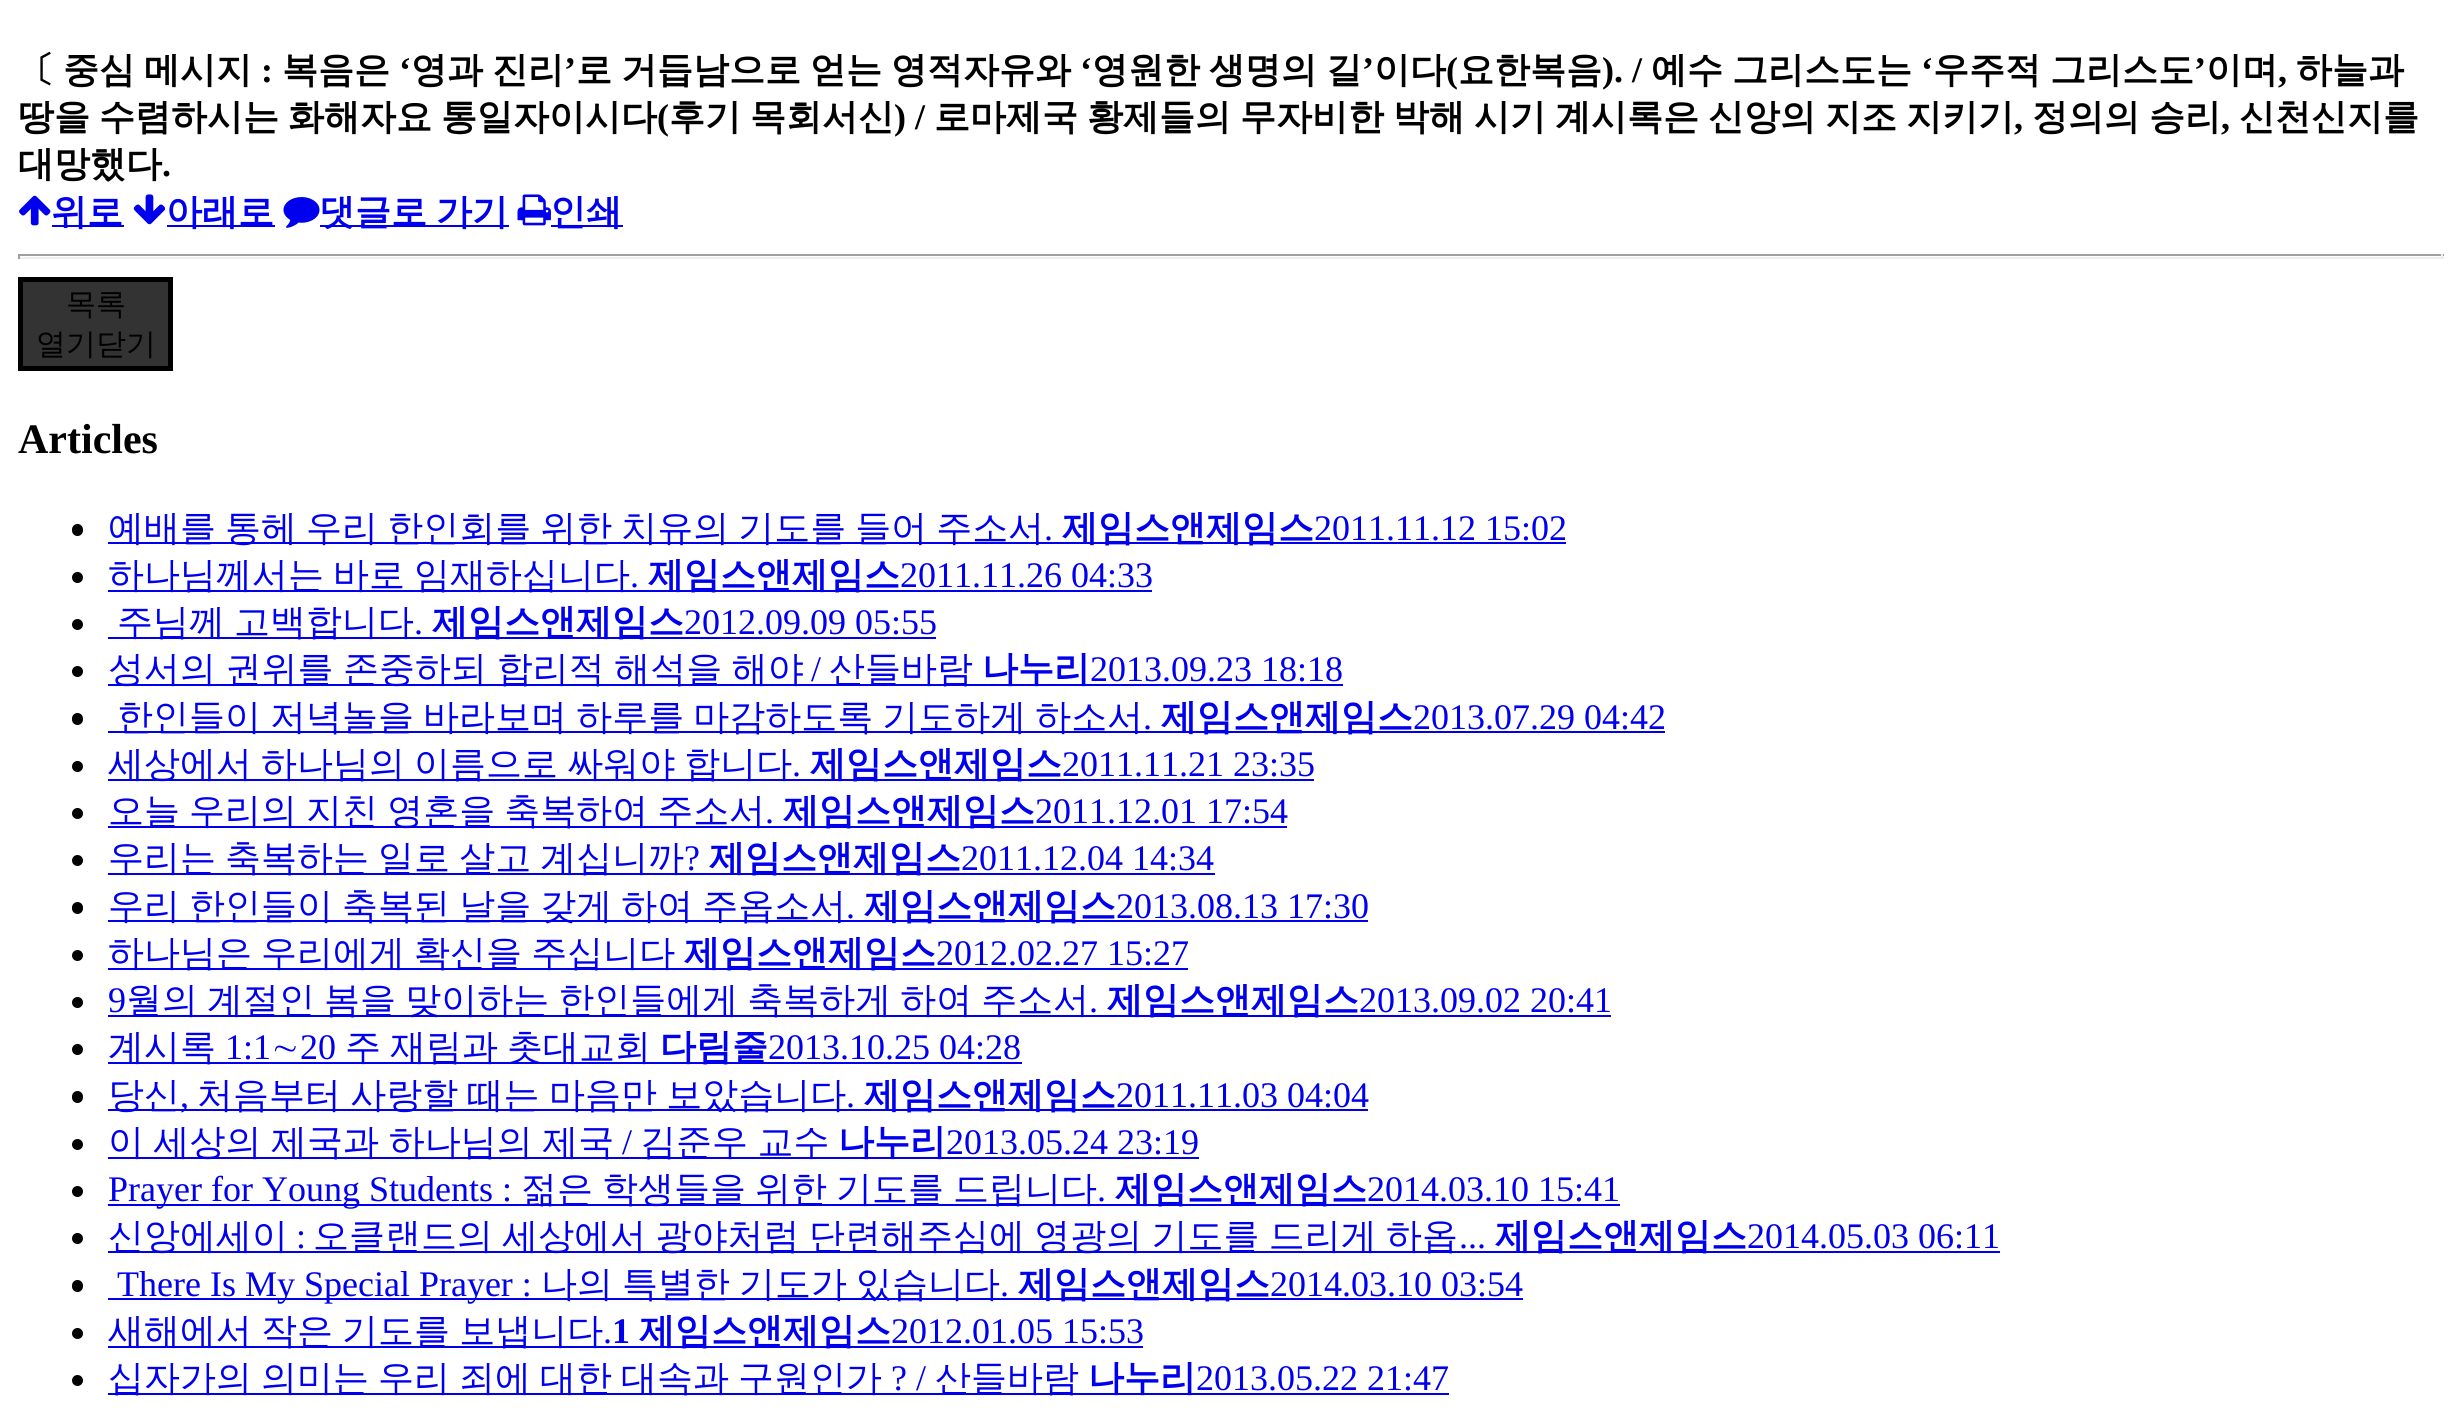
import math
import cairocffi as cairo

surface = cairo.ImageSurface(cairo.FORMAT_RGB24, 2460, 1416)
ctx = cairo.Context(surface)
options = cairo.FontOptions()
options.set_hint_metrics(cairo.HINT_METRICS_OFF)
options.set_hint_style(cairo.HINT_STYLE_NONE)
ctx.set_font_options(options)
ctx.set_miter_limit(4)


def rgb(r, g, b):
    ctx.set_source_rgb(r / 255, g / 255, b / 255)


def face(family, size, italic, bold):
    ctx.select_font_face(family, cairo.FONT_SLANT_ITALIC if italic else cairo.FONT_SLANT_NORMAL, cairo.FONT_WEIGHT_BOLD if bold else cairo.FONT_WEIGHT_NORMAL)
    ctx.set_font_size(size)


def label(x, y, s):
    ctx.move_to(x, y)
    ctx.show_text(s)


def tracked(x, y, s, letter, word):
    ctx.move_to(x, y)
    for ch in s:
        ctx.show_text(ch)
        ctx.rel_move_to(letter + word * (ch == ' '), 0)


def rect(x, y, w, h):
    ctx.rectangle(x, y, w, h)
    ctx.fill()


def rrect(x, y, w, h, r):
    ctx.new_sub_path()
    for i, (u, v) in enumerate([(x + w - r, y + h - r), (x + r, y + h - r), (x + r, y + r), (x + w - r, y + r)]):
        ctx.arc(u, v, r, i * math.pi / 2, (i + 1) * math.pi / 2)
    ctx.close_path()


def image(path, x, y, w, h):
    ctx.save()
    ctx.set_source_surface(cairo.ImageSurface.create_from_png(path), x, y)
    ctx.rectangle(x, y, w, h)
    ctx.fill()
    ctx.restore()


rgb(255, 255, 255)
ctx.paint()
face('WenQuanYi Zen Hei', 36, 0, 1)
rgb(0, 0, 0)
label(18, 82, '〔')
label(63, 82, '중심')
label(144, 82, '메시지')
label(282, 82, '복음은')
face('Liberation Serif', 36, 0, 1)
label(399, 82, '‘')
face('WenQuanYi Zen Hei', 36, 0, 1)
label(411, 82, '영과')
label(492, 82, '진리')
face('Liberation Serif', 36, 0, 1)
label(564, 82, '’')
face('WenQuanYi Zen Hei', 36, 0, 1)
label(576, 82, '로')
label(621, 82, '거듭남으로')
label(810, 82, '얻는')
label(891, 82, '영적자유와')
face('Liberation Serif', 36, 0, 1)
label(1080, 82, '‘')
face('WenQuanYi Zen Hei', 36, 0, 1)
label(1092, 82, '영원한')
label(1209, 82, '생명의')
label(1326, 82, '길')
face('Liberation Serif', 36, 0, 1)
label(1362, 82, '’')
face('WenQuanYi Zen Hei', 36, 0, 1)
label(1374, 82, '이다')
face('Liberation Serif', 36, 0, 1)
label(1446, 82, '(')
face('WenQuanYi Zen Hei', 36, 0, 1)
label(1458, 82, '요한복음')
face('Liberation Serif', 36, 0, 1)
label(1602, 82, '). /')
face('WenQuanYi Zen Hei', 36, 0, 1)
label(1651, 82, '예수')
label(1732, 82, '그리스도는')
face('Liberation Serif', 36, 0, 1)
label(1921, 82, '‘')
face('WenQuanYi Zen Hei', 36, 0, 1)
label(1933, 82, '우주적')
label(2050, 82, '그리스도')
face('Liberation Serif', 36, 0, 1)
label(2194, 82, '’')
face('WenQuanYi Zen Hei', 36, 0, 1)
label(2206, 82, '이며')
label(2296, 82, '하늘과')
face('Liberation Serif', 36, 0, 1)
label(261, 82, ':')
label(2278, 82, ',')
face('WenQuanYi Zen Hei', 36, 0, 1)
label(18, 129, '땅을')
label(99, 129, '수렴하시는')
label(288, 129, '화해자요')
label(441, 129, '통일자이시다')
face('Liberation Serif', 36, 0, 1)
label(657, 129, '(')
face('WenQuanYi Zen Hei', 36, 0, 1)
label(669, 129, '후기')
label(750, 129, '목회서신')
face('Liberation Serif', 36, 0, 1)
label(894, 129, ') /')
face('WenQuanYi Zen Hei', 36, 0, 1)
label(934, 129, '로마제국')
label(1087, 129, '황제들의')
label(1240, 129, '무자비한')
label(1393, 129, '박해')
label(1474, 129, '시기')
label(1555, 129, '계시록은')
label(1708, 129, '신앙의')
label(1825, 129, '지조')
label(1906, 129, '지키기')
face('Liberation Serif', 36, 0, 1)
label(2014, 129, ',')
face('WenQuanYi Zen Hei', 36, 0, 1)
label(2032, 129, '정의의')
label(2149, 129, '승리')
face('Liberation Serif', 36, 0, 1)
label(2221, 129, ',')
face('WenQuanYi Zen Hei', 36, 0, 1)
label(2239, 129, '신천신지를')
label(18, 176, '대망했다')
face('Liberation Serif', 36, 0, 1)
label(162, 176, '.')
image('image0.png', 19, 195, 32, 31)
rgb(0, 0, 238)
rect(52, 225, 72, 2)
face('WenQuanYi Zen Hei', 36, 0, 1)
label(51, 224, '위로')
image('image1.png', 133, 194, 33, 31)
rect(167, 225, 108, 2)
label(166, 224, '아래로')
image('image2.png', 283, 197, 37, 31)
rect(320, 225, 189, 2)
tracked(319, 224, '댓글로 가기', 0, -1.75)
image('image3.png', 517, 194, 34, 32)
rect(551, 225, 72, 2)
label(550, 224, '인쇄')
rgb(159, 159, 159)
rect(18, 254, 2426, 2)
rgb(238, 238, 238)
rect(2441, 254, 2, 5)
rect(18, 257, 2426, 2)
rgb(159, 159, 159)
rect(18, 254, 2, 5)
rgb(51, 51, 51)
ctx.rectangle(20.5, 279.5, 150, 89)
ctx.fill_preserve()
rgb(0, 0, 0)
ctx.set_line_width(5)
ctx.stroke()
face('WenQuanYi Zen Hei Medium', 30, 0, 0)
label(66, 314, '목록')
label(36, 354, '열기닫기')
face('Liberation Serif', 42, 0, 1)
label(18, 453, 'Articles')
rrect(72, 524, 11, 12, 5.5)
ctx.fill()
rgb(0, 0, 238)
rect(108, 542, 1458, 2)
face('WenQuanYi Zen Hei Medium', 36, 0, 0)
tracked(108, 540, '예배를 통헤 우리 한인회를 위한 치유의 기도를 들어 주소서', 0, -1.75)
face('WenQuanYi Zen Hei', 36, 0, 1)
label(1062, 540, '제임스앤제임스')
face('Liberation Serif', 36, 0, 0)
label(1314, 540, '2011.11.12 15:02')
label(1044, 540, '.')
rgb(0, 0, 0)
ctx.new_path()
ctx.arc(77.5, 577.5, 5.5, 0, 2 * math.pi)
ctx.fill()
rgb(0, 0, 238)
rect(108, 590, 1044, 2)
face('WenQuanYi Zen Hei Medium', 36, 0, 0)
tracked(108, 587, '하나님께서는 바로 임재하십니다', 0, -1.75)
face('WenQuanYi Zen Hei', 36, 0, 1)
label(648, 587, '제임스앤제임스')
face('Liberation Serif', 36, 0, 0)
label(900, 587, '2011.11.26 04:33')
label(630, 587, '.')
rgb(0, 0, 0)
ctx.new_path()
ctx.arc(77.5, 624.5, 5.5, 0, 2 * math.pi)
ctx.fill()
rgb(0, 0, 238)
rect(108, 637, 828, 2)
face('WenQuanYi Zen Hei Medium', 36, 0, 0)
tracked(117, 634, '주님께 고백합니다', 0, -1.75)
face('WenQuanYi Zen Hei', 36, 0, 1)
label(432, 634, '제임스앤제임스')
face('Liberation Serif', 36, 0, 0)
label(684, 634, '2012.09.09 05:55')
label(414, 634, '.')
rgb(0, 0, 0)
ctx.new_path()
ctx.arc(77.5, 671.5, 5.5, 0, 2 * math.pi)
ctx.fill()
rgb(0, 0, 238)
rect(108, 684, 864, 2)
face('WenQuanYi Zen Hei Medium', 36, 0, 0)
tracked(108, 681, '성서의 권위를 존중하되 합리적 해석을 해야', 0, -1.25)
face('Liberation Serif', 36, 0, 0)
label(811, 681, '/')
face('WenQuanYi Zen Hei Medium', 36, 0, 0)
label(829, 681, '산들바람')
rect(972, 684, 371, 2)
face('WenQuanYi Zen Hei', 36, 0, 1)
label(982, 681, '나누리')
face('Liberation Serif', 36, 0, 0)
label(1090, 681, '2013.09.23 18:18')
rgb(0, 0, 0)
rrect(72, 713, 11, 12, 5.5)
ctx.fill()
rgb(0, 0, 238)
rect(108, 731, 1557, 2)
face('WenQuanYi Zen Hei Medium', 36, 0, 0)
tracked(117, 729, '한인들이 저녁놀을 바라보며 하루를 마감하도록 기도하게 하소서', 0, -1.75)
face('WenQuanYi Zen Hei', 36, 0, 1)
label(1161, 729, '제임스앤제임스')
face('Liberation Serif', 36, 0, 0)
label(1413, 729, '2013.07.29 04:42')
label(1143, 729, '.')
rgb(0, 0, 0)
ctx.new_path()
ctx.arc(77.5, 766.5, 5.5, 0, 2 * math.pi)
ctx.fill()
rgb(0, 0, 238)
rect(108, 779, 1206, 2)
face('WenQuanYi Zen Hei Medium', 36, 0, 0)
tracked(108, 776, '세상에서 하나님의 이름으로 싸워야 합니다', 0, -1.75)
face('WenQuanYi Zen Hei', 36, 0, 1)
label(810, 776, '제임스앤제임스')
face('Liberation Serif', 36, 0, 0)
label(1062, 776, '2011.11.21 23:35')
label(792, 776, '.')
rgb(0, 0, 0)
ctx.new_path()
ctx.arc(77.5, 813.5, 5.5, 0, 2 * math.pi)
ctx.fill()
rgb(0, 0, 238)
rect(108, 826, 1179, 2)
face('WenQuanYi Zen Hei Medium', 36, 0, 0)
tracked(108, 823, '오늘 우리의 지친 영혼을 축복하여 주소서', 0, -1.75)
face('WenQuanYi Zen Hei', 36, 0, 1)
label(783, 823, '제임스앤제임스')
face('Liberation Serif', 36, 0, 0)
label(1035, 823, '2011.12.01 17:54')
label(765, 823, '.')
rgb(0, 0, 0)
ctx.new_path()
ctx.arc(77.5, 860.5, 5.5, 0, 2 * math.pi)
ctx.fill()
rgb(0, 0, 238)
rect(108, 873, 1107, 2)
face('WenQuanYi Zen Hei Medium', 36, 0, 0)
tracked(108, 870, '우리는 축복하는 일로 살고 계십니까', 0, -1.75)
face('Liberation Serif', 36, 0, 0)
label(684, 870, '?')
face('WenQuanYi Zen Hei', 36, 0, 1)
label(709, 870, '제임스앤제임스')
face('Liberation Serif', 36, 0, 0)
label(961, 870, '2011.12.04 14:34')
rgb(0, 0, 0)
rrect(72, 902, 11, 12, 5.5)
ctx.fill()
rgb(0, 0, 238)
rect(108, 920, 1260, 2)
face('WenQuanYi Zen Hei Medium', 36, 0, 0)
tracked(108, 918, '우리 한인들이 축복된 날을 갖게 하여 주옵소서', 0, -1.75)
face('WenQuanYi Zen Hei', 36, 0, 1)
label(864, 918, '제임스앤제임스')
face('Liberation Serif', 36, 0, 0)
label(1116, 918, '2013.08.13 17:30')
label(846, 918, '.')
rgb(0, 0, 0)
ctx.new_path()
ctx.arc(77.5, 955.5, 5.5, 0, 2 * math.pi)
ctx.fill()
rgb(0, 0, 238)
rect(108, 968, 1080, 2)
face('WenQuanYi Zen Hei Medium', 36, 0, 0)
tracked(108, 965, '하나님은 우리에게 확신을 주십니다', 0, -1.75)
face('WenQuanYi Zen Hei', 36, 0, 1)
label(684, 965, '제임스앤제임스')
face('Liberation Serif', 36, 0, 0)
label(936, 965, '2012.02.27 15:27')
rgb(0, 0, 0)
ctx.new_path()
ctx.arc(77.5, 1002.5, 5.5, 0, 2 * math.pi)
ctx.fill()
rgb(0, 0, 238)
label(108, 1012, '9')
rect(108, 1015, 1503, 2)
face('WenQuanYi Zen Hei Medium', 36, 0, 0)
tracked(126, 1012, '월의 계절인 봄을 맞이하는 한인들에게 축복하게 하여 주소서', 0, -1.75)
face('WenQuanYi Zen Hei', 36, 0, 1)
label(1107, 1012, '제임스앤제임스')
face('Liberation Serif', 36, 0, 0)
label(1359, 1012, '2013.09.02 20:41')
label(1089, 1012, '.')
rgb(0, 0, 0)
ctx.new_path()
ctx.arc(77.5, 1049.5, 5.5, 0, 2 * math.pi)
ctx.fill()
rgb(0, 0, 238)
rect(108, 1062, 914, 2)
face('WenQuanYi Zen Hei Medium', 36, 0, 0)
label(108, 1059, '계시록')
face('Liberation Serif', 36, 0, 0)
label(225, 1059, '1:1')
face('WenQuanYi Zen Hei Medium', 36, 0, 0)
label(271, 1059, '∼')
face('Liberation Serif', 36, 0, 0)
label(300, 1059, '20')
face('WenQuanYi Zen Hei Medium', 36, 0, 0)
tracked(345, 1059, '주 재림과 촛대교회', 0, -1.75)
face('WenQuanYi Zen Hei', 36, 0, 1)
label(660, 1059, '다림줄')
face('Liberation Serif', 36, 0, 0)
label(768, 1059, '2013.10.25 04:28')
rgb(0, 0, 0)
rrect(72, 1091, 11, 12, 5.5)
ctx.fill()
rgb(0, 0, 238)
rect(108, 1109, 1260, 2)
face('WenQuanYi Zen Hei Medium', 36, 0, 0)
label(108, 1107, '당신')
tracked(197, 1107, '처음부터 사랑할 때는 마음만 보았습니다', 0, -1.5)
face('WenQuanYi Zen Hei', 36, 0, 1)
label(864, 1107, '제임스앤제임스')
face('Liberation Serif', 36, 0, 0)
label(1116, 1107, '2011.11.03 04:04')
label(180, 1107, ',')
label(846, 1107, '.')
rgb(0, 0, 0)
ctx.new_path()
ctx.arc(77.5, 1144.5, 5.5, 0, 2 * math.pi)
ctx.fill()
rgb(0, 0, 238)
rect(108, 1157, 1091, 2)
face('WenQuanYi Zen Hei Medium', 36, 0, 0)
tracked(108, 1154, '이 세상의 제국과 하나님의 제국', 0, -1.25)
face('Liberation Serif', 36, 0, 0)
label(622, 1154, '/')
face('WenQuanYi Zen Hei Medium', 36, 0, 0)
tracked(640, 1154, '김준우 교수', 0, -1.25)
face('WenQuanYi Zen Hei', 36, 0, 1)
label(838, 1154, '나누리')
face('Liberation Serif', 36, 0, 0)
label(946, 1154, '2013.05.24 23:19')
rgb(0, 0, 0)
ctx.new_path()
ctx.arc(77.5, 1191.5, 5.5, 0, 2 * math.pi)
ctx.fill()
rgb(0, 0, 238)
rect(108, 1204, 1512, 2)
label(108, 1201, 'Prayer for Young Students :')
face('WenQuanYi Zen Hei Medium', 36, 0, 0)
label(521, 1201, '젊은')
label(602, 1201, '학생들을')
label(755, 1201, '위한')
label(836, 1201, '기도를')
label(953, 1201, '드립니다')
face('WenQuanYi Zen Hei', 36, 0, 1)
label(1115, 1201, '제임스앤제임스')
face('Liberation Serif', 36, 0, 0)
label(1367, 1201, '2014.03.10 15:41')
label(1097, 1201, '.')
rgb(0, 0, 0)
ctx.new_path()
ctx.arc(77.5, 1238.5, 5.5, 0, 2 * math.pi)
ctx.fill()
rgb(0, 0, 238)
rect(108, 1251, 1892, 2)
face('WenQuanYi Zen Hei Medium', 36, 0, 0)
label(108, 1248, '신앙에세이')
face('Liberation Serif', 36, 0, 0)
label(296, 1248, ':')
face('WenQuanYi Zen Hei Medium', 36, 0, 0)
tracked(313, 1248, '오클랜드의 세상에서 광야처럼 단련해주심에 영광의 기도를 드리게 하옵', 0, -1.5)
face('WenQuanYi Zen Hei', 36, 0, 1)
label(1495, 1248, '제임스앤제임스')
face('Liberation Serif', 36, 0, 0)
label(1747, 1248, '2014.05.03 06:11')
label(1459, 1248, '...')
rgb(0, 0, 0)
rrect(72, 1280, 11, 12, 5.5)
ctx.fill()
rgb(0, 0, 238)
rect(108, 1298, 1415, 2)
label(117, 1296, 'There Is My Special Prayer :')
face('WenQuanYi Zen Hei Medium', 36, 0, 0)
label(541, 1296, '나의')
label(622, 1296, '특별한')
label(739, 1296, '기도가')
label(856, 1296, '있습니다')
face('WenQuanYi Zen Hei', 36, 0, 1)
label(1018, 1296, '제임스앤제임스')
face('Liberation Serif', 36, 0, 0)
label(1270, 1296, '2014.03.10 03:54')
label(1000, 1296, '.')
rgb(0, 0, 0)
ctx.new_path()
ctx.arc(77.5, 1333.5, 5.5, 0, 2 * math.pi)
ctx.fill()
rgb(0, 0, 238)
rect(108, 1346, 1035, 2)
face('WenQuanYi Zen Hei Medium', 36, 0, 0)
tracked(108, 1343, '새해에서 작은 기도를 보냅니다', 0, -1.75)
face('Liberation Serif', 36, 0, 1)
label(612, 1343, '1')
face('WenQuanYi Zen Hei', 36, 0, 1)
label(639, 1343, '제임스앤제임스')
face('Liberation Serif', 36, 0, 0)
label(891, 1343, '2012.01.05 15:53')
label(603, 1343, '.')
rgb(0, 0, 0)
ctx.new_path()
ctx.arc(77.5, 1380.5, 5.5, 0, 2 * math.pi)
ctx.fill()
rgb(0, 0, 238)
rect(108, 1393, 1341, 2)
face('WenQuanYi Zen Hei Medium', 36, 0, 0)
label(108, 1390, '십자가의')
label(261, 1390, '의미는')
label(378, 1390, '우리')
label(459, 1390, '죄에')
label(540, 1390, '대한')
label(621, 1390, '대속과')
label(738, 1390, '구원인가')
face('Liberation Serif', 36, 0, 0)
label(891, 1390, '? /')
face('WenQuanYi Zen Hei Medium', 36, 0, 0)
label(935, 1390, '산들바람')
face('WenQuanYi Zen Hei', 36, 0, 1)
label(1088, 1390, '나누리')
face('Liberation Serif', 36, 0, 0)
label(1196, 1390, '2013.05.22 21:47')
surface.write_to_png('render.png')
